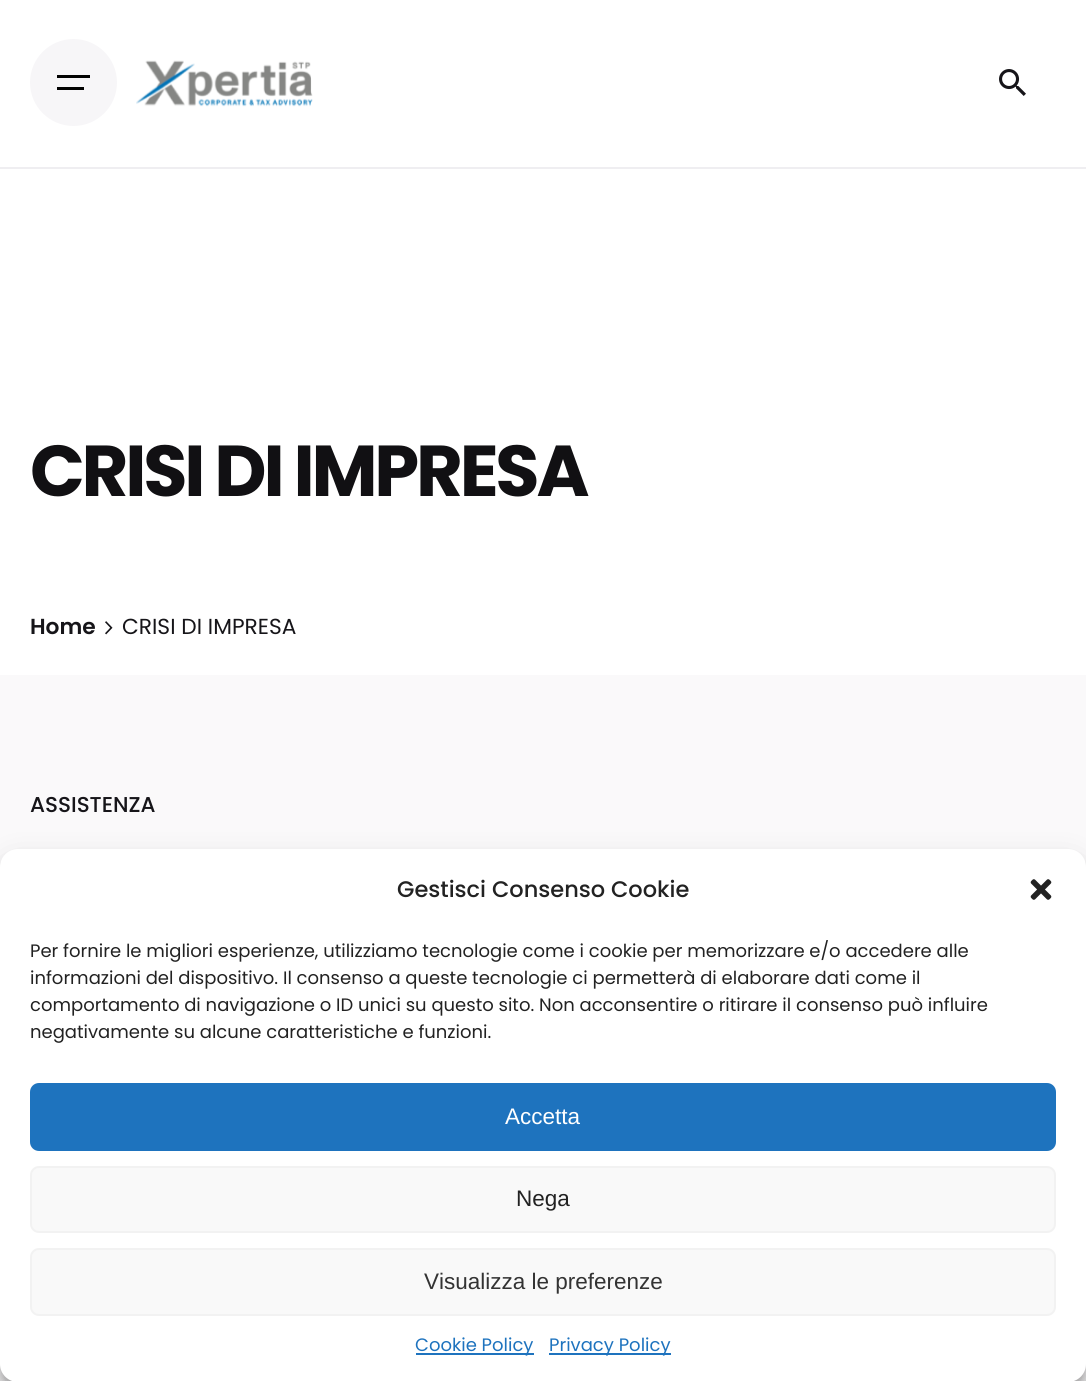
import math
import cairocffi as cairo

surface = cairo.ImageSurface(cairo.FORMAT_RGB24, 1086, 1381)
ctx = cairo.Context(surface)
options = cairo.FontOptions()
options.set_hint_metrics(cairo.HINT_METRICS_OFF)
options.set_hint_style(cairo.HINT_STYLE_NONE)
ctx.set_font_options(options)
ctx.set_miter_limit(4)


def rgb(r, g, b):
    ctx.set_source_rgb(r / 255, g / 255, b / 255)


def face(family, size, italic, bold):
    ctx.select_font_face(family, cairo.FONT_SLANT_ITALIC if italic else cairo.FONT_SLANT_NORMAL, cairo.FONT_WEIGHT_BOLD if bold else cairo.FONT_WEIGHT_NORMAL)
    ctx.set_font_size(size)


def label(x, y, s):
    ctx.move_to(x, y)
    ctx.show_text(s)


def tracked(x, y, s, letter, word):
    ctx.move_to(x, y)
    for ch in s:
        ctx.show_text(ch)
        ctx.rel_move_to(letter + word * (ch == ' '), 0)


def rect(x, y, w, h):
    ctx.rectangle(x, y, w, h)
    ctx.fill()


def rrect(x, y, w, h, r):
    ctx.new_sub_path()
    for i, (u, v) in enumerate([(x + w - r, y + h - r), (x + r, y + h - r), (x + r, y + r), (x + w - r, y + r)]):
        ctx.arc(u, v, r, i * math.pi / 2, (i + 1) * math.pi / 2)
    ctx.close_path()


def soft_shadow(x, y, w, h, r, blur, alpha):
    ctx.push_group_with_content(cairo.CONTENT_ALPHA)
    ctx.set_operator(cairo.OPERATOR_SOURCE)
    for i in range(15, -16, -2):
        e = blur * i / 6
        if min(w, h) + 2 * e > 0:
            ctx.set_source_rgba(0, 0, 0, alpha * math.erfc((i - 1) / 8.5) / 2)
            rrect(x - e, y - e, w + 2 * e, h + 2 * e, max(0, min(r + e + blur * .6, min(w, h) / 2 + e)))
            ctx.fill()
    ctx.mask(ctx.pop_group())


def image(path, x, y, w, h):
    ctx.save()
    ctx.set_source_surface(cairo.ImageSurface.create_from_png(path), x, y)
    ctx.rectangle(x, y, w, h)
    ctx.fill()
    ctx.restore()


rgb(255, 255, 255)
ctx.paint()
rgb(239, 238, 241)
rect(0, 167, 1086, 2)
rgb(247, 246, 248)
ctx.arc(73.5, 82.5, 43.5, 0, 2 * math.pi)
ctx.fill()
rgb(2, 2, 2)
rect(57, 75, 33, 3)
rect(57, 87, 27, 3)
image('image0.png', 136, 60, 177, 47)
image('image1.png', 999, 69, 27, 27)
face('Poppins', 72, 0, 1)
rgb(17, 16, 19)
tracked(30, 496, 'CRISI DI IMPRESA', -3.25, 0)
face('Poppins SemiBold', 21.75, 0, 0)
rgb(22, 21, 25)
label(30, 634, 'Home')
image('image2.png', 105, 621, 8, 14)
face('Poppins', 21.75, 0, 0)
label(122, 634, 'CRISI DI IMPRESA')
rgb(250, 249, 250)
rect(0, 675, 1086, 706)
face('Poppins Medium', 21.5, 0, 0)
rgb(22, 21, 25)
label(30, 812, 'ASSISTENZA')
rgb(0, 0, 0)
soft_shadow(0, 858, 1086, 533, 18, 4.5, 0.23)
soft_shadow(0, 864, 1086, 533, 18, 15, 0.19)
rgb(255, 255, 255)
rrect(0, 849, 1086, 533, 18)
ctx.fill()
face('Poppins Medium', 22.5, 0, 0)
rgb(34, 34, 34)
label(397, 897, 'Gestisci Consenso Cookie')
image('image3.png', 1030, 879, 22, 21)
face('Poppins', 18, 0, 0)
label(30, 957, 'Per fornire le migliori esperienze, utilizziamo tecnologie come i cookie per memorizzare e/o accedere alle')
label(30, 984, 'informazioni del dispositivo. Il consenso a queste tecnologie ci permetterà di elaborare dati come il')
label(30, 1011, 'comportamento di navigazione o ID unici su questo sito. Non acconsentire o ritirare il consenso può influire')
label(30, 1038, 'negativamente su alcune caratteristiche e funzioni.')
rgb(30, 115, 190)
rrect(31, 1084, 1024, 66, 8)
ctx.fill_preserve()
ctx.stroke()
face('Liberation Sans', 22.5, 0, 0)
rgb(255, 255, 255)
label(505, 1124, 'Accetta')
rgb(249, 249, 249)
rrect(31, 1167, 1024, 65, 8)
ctx.fill_preserve()
rgb(242, 242, 242)
ctx.stroke()
rgb(34, 34, 34)
label(516, 1206, 'Nega')
rgb(249, 249, 249)
rrect(31, 1249, 1024, 66, 8)
ctx.fill_preserve()
rgb(242, 242, 242)
ctx.stroke()
rgb(51, 51, 51)
label(424, 1289, 'Visualizza le preferenze')
rgb(30, 115, 190)
rect(416, 1353, 118, 2)
face('Poppins', 18, 0, 0)
label(415, 1351, 'Cookie Policy')
rect(549, 1353, 122, 2)
label(549, 1351, 'Privacy Policy')
surface.write_to_png('render.png')
